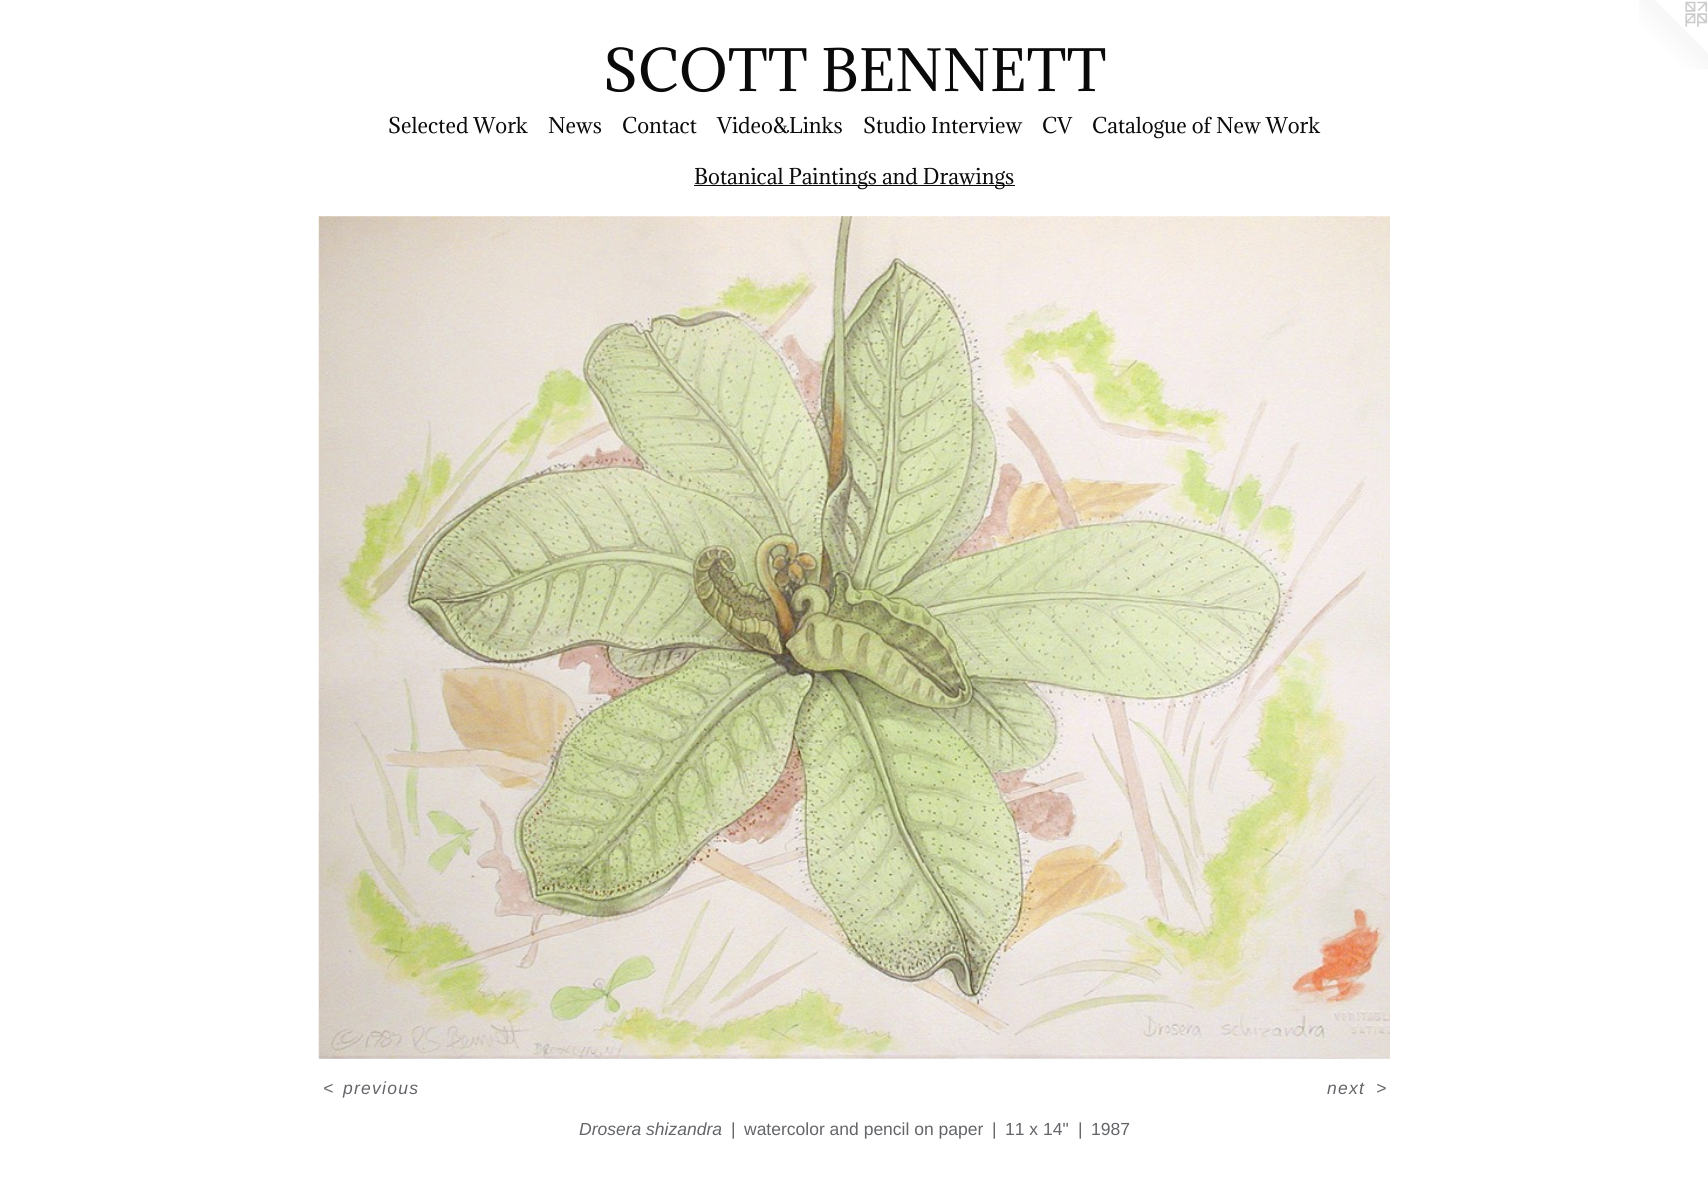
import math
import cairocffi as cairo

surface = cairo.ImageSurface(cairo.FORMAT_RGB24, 1708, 1202)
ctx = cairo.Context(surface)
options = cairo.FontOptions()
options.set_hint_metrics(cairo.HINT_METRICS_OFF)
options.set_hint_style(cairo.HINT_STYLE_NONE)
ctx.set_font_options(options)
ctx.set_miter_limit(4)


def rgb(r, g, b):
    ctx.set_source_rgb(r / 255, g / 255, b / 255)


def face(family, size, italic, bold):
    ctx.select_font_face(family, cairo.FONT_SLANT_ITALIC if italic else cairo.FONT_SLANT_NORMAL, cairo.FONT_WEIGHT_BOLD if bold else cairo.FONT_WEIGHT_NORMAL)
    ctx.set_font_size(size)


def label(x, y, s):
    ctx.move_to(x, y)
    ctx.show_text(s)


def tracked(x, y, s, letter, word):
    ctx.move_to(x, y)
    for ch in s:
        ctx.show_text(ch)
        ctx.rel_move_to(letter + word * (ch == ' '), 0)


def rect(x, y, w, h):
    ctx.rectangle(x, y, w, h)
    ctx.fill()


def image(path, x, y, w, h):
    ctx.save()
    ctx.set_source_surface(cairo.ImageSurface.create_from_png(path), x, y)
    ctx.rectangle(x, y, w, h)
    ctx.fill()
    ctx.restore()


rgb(255, 255, 255)
ctx.paint()
face('Adamina', 53.75, 0, 0)
rgb(10, 10, 10)
label(603, 91, 'SCOTT BENNETT')
image('image0.png', 1639, 0, 69, 69)
face('Adamina', 20, 0, 0)
label(388, 133, 'Selected Work')
label(548, 133, 'News')
label(622, 133, 'Contact')
label(717, 133, 'Video&Links')
label(863, 133, 'Studio Interview')
label(1042, 133, 'CV')
label(1092, 133, 'Catalogue of New Work')
rgb(11, 9, 9)
rect(694, 185, 321, 1)
rgb(10, 10, 10)
label(694, 184, 'Botanical Paintings and Drawings')
image('image1.png', 318, 216, 1072, 843)
face('Liberation Sans', 17.5, 1, 0)
rgb(99, 101, 105)
tracked(323, 1094, '<', 1.25, 0)
tracked(343, 1094, 'previous', 1.25, 0)
tracked(1327, 1094, 'next', 1.25, 0)
tracked(1376, 1094, '>', 1.25, 0)
label(579, 1135, 'Drosera shizandra')
face('Liberation Sans', 17.5, 0, 0)
label(731, 1135, '|')
label(744, 1135, 'watercolor and pencil on paper')
label(992, 1135, '|')
label(1005, 1135, '11 x 14"')
label(1078, 1135, '|')
label(1091, 1135, '1987')
surface.write_to_png('render.png')
